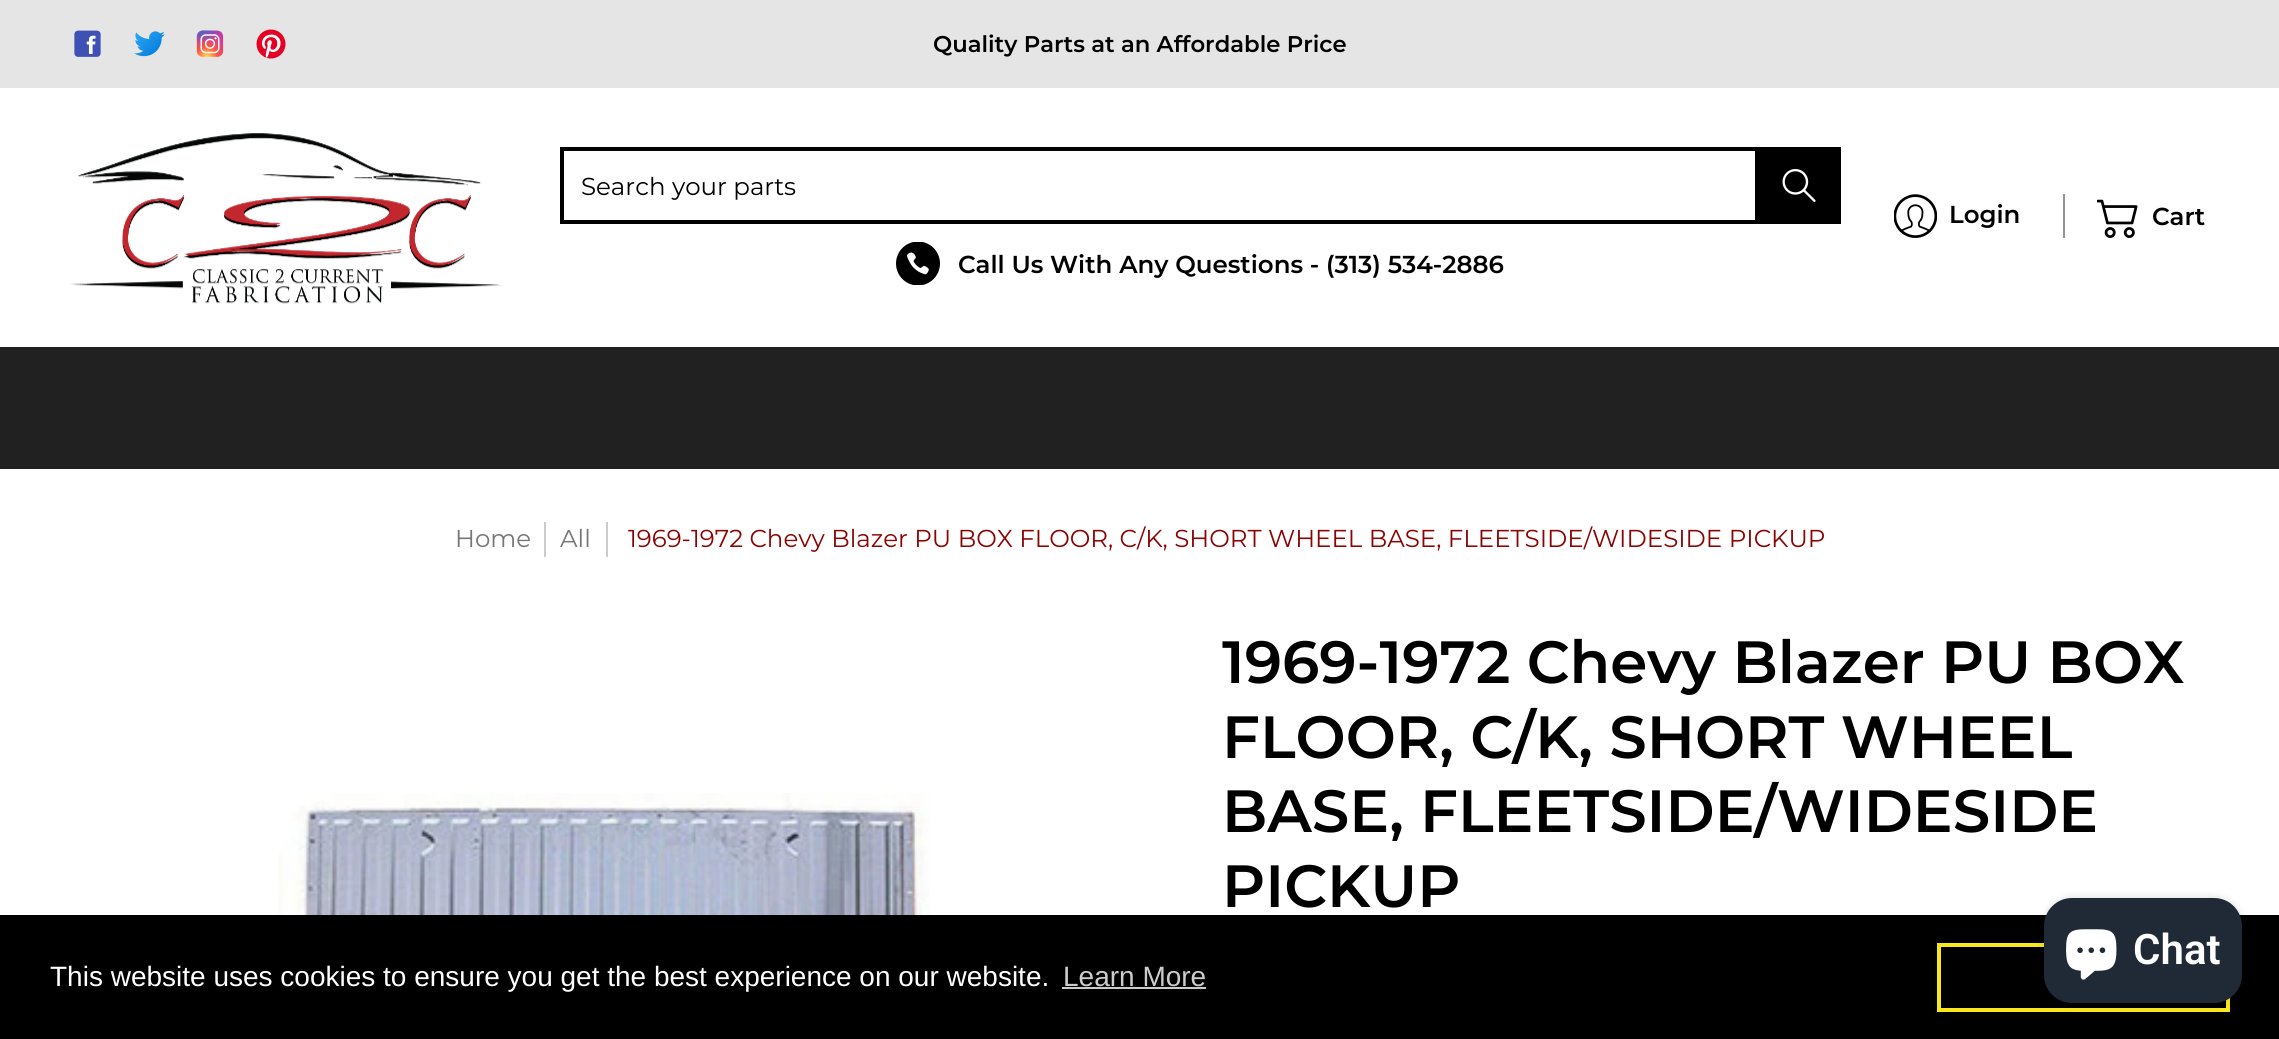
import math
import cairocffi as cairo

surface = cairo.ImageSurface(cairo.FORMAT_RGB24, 2279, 1039)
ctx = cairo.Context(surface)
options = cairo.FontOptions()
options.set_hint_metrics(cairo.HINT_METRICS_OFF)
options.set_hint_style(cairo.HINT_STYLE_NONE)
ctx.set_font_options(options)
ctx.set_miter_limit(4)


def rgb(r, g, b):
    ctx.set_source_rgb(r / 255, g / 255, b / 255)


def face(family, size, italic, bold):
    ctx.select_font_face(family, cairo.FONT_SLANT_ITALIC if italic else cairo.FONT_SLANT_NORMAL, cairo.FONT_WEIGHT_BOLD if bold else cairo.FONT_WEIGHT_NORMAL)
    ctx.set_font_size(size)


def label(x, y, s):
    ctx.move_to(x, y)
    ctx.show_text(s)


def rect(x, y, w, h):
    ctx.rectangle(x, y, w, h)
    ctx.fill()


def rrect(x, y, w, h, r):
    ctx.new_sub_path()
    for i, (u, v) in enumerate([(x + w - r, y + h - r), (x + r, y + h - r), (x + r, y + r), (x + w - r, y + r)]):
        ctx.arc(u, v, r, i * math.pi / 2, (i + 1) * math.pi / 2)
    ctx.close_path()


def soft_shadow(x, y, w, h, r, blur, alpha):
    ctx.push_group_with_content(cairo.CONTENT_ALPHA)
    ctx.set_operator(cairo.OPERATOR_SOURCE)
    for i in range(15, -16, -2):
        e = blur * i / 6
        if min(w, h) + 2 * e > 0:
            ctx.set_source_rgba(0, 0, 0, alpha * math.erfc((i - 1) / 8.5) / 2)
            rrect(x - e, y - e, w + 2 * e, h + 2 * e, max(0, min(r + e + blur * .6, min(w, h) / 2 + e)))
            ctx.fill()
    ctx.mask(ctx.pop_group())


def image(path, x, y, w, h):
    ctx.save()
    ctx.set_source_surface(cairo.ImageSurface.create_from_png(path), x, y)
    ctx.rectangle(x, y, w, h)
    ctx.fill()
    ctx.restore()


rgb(255, 255, 255)
ctx.paint()
rgb(229, 229, 229)
rect(0, 0, 2279, 88)
image('image0.png', 74, 30, 27, 27)
image('image1.png', 134, 31, 31, 26)
image('image2.png', 196, 30, 28, 27)
image('image3.png', 256, 29, 30, 30)
face('Montserrat SemiBold', 22.75, 0, 0)
rgb(0, 0, 0)
label(933, 52, 'Quality Parts at an Affordable Price')
image('image4.png', 70, 133, 433, 171)
ctx.rectangle(562, 149, 1195, 73)
ctx.set_line_width(4)
ctx.stroke()
face('Montserrat', 24.5, 0, 0)
label(581, 195, 'Search your parts')
rect(1759, 147, 82, 77)
image('image5.png', 1782, 169, 34, 33)
image('image6.png', 896, 242, 44, 43)
face('Montserrat SemiBold', 24.5, 0, 0)
label(958, 273, 'Call Us With Any Questions - (313) 534-2886')
rgb(148, 148, 148)
rect(2063, 194, 2, 44)
image('image7.png', 1894, 194, 43, 44)
rgb(0, 0, 0)
label(1949, 223, 'Login')
image('image8.png', 2097, 199, 41, 39)
label(2152, 225, 'Cart')
rgb(34, 33, 34)
rect(0, 347, 2279, 122)
face('Montserrat', 24.5, 0, 0)
rgb(118, 118, 118)
label(455, 547, 'Home')
rgb(204, 204, 204)
rect(544, 522, 2, 35)
rgb(118, 118, 118)
label(560, 547, 'All')
rgb(204, 204, 204)
rect(606, 522, 2, 35)
rgb(139, 3, 3)
label(628, 547, '1969-1972 Chevy Blazer PU BOX FLOOR, C/K, SHORT WHEEL BASE, FLEETSIDE/WIDESIDE PICKUP')
image('image9.png', 278, 793, 652, 122)
face('Montserrat SemiBold', 59.5, 0, 0)
rgb(0, 0, 0)
label(1222, 683, '1969-1972 Chevy Blazer PU BOX')
label(1222, 758, 'FLOOR, C/K, SHORT WHEEL')
label(1222, 832, 'BASE, FLEETSIDE/WIDESIDE')
label(1222, 907, 'PICKUP')
rect(0, 915, 2279, 124)
ctx.rectangle(1939, 945, 289, 65)
rgb(248, 231, 28)
ctx.stroke()
rgb(0, 0, 0)
soft_shadow(2044, 898, 198, 105, 28, 4.5, 0.15)
rgb(32, 42, 54)
rrect(2044, 898, 198, 105, 28)
ctx.fill()
image('image10.png', 2066, 929, 51, 51)
face('Roboto SemiBold', 42, 0, 0)
rgb(255, 255, 255)
label(2133, 964, 'Chat')
face('Liberation Sans', 28, 0, 0)
label(50, 986, 'This website uses cookies to ensure you get the best experience on our website.')
rgb(204, 204, 204)
label(1063, 986, 'Learn More')
rect(1062, 987, 144, 2)
surface.write_to_png('render.png')
